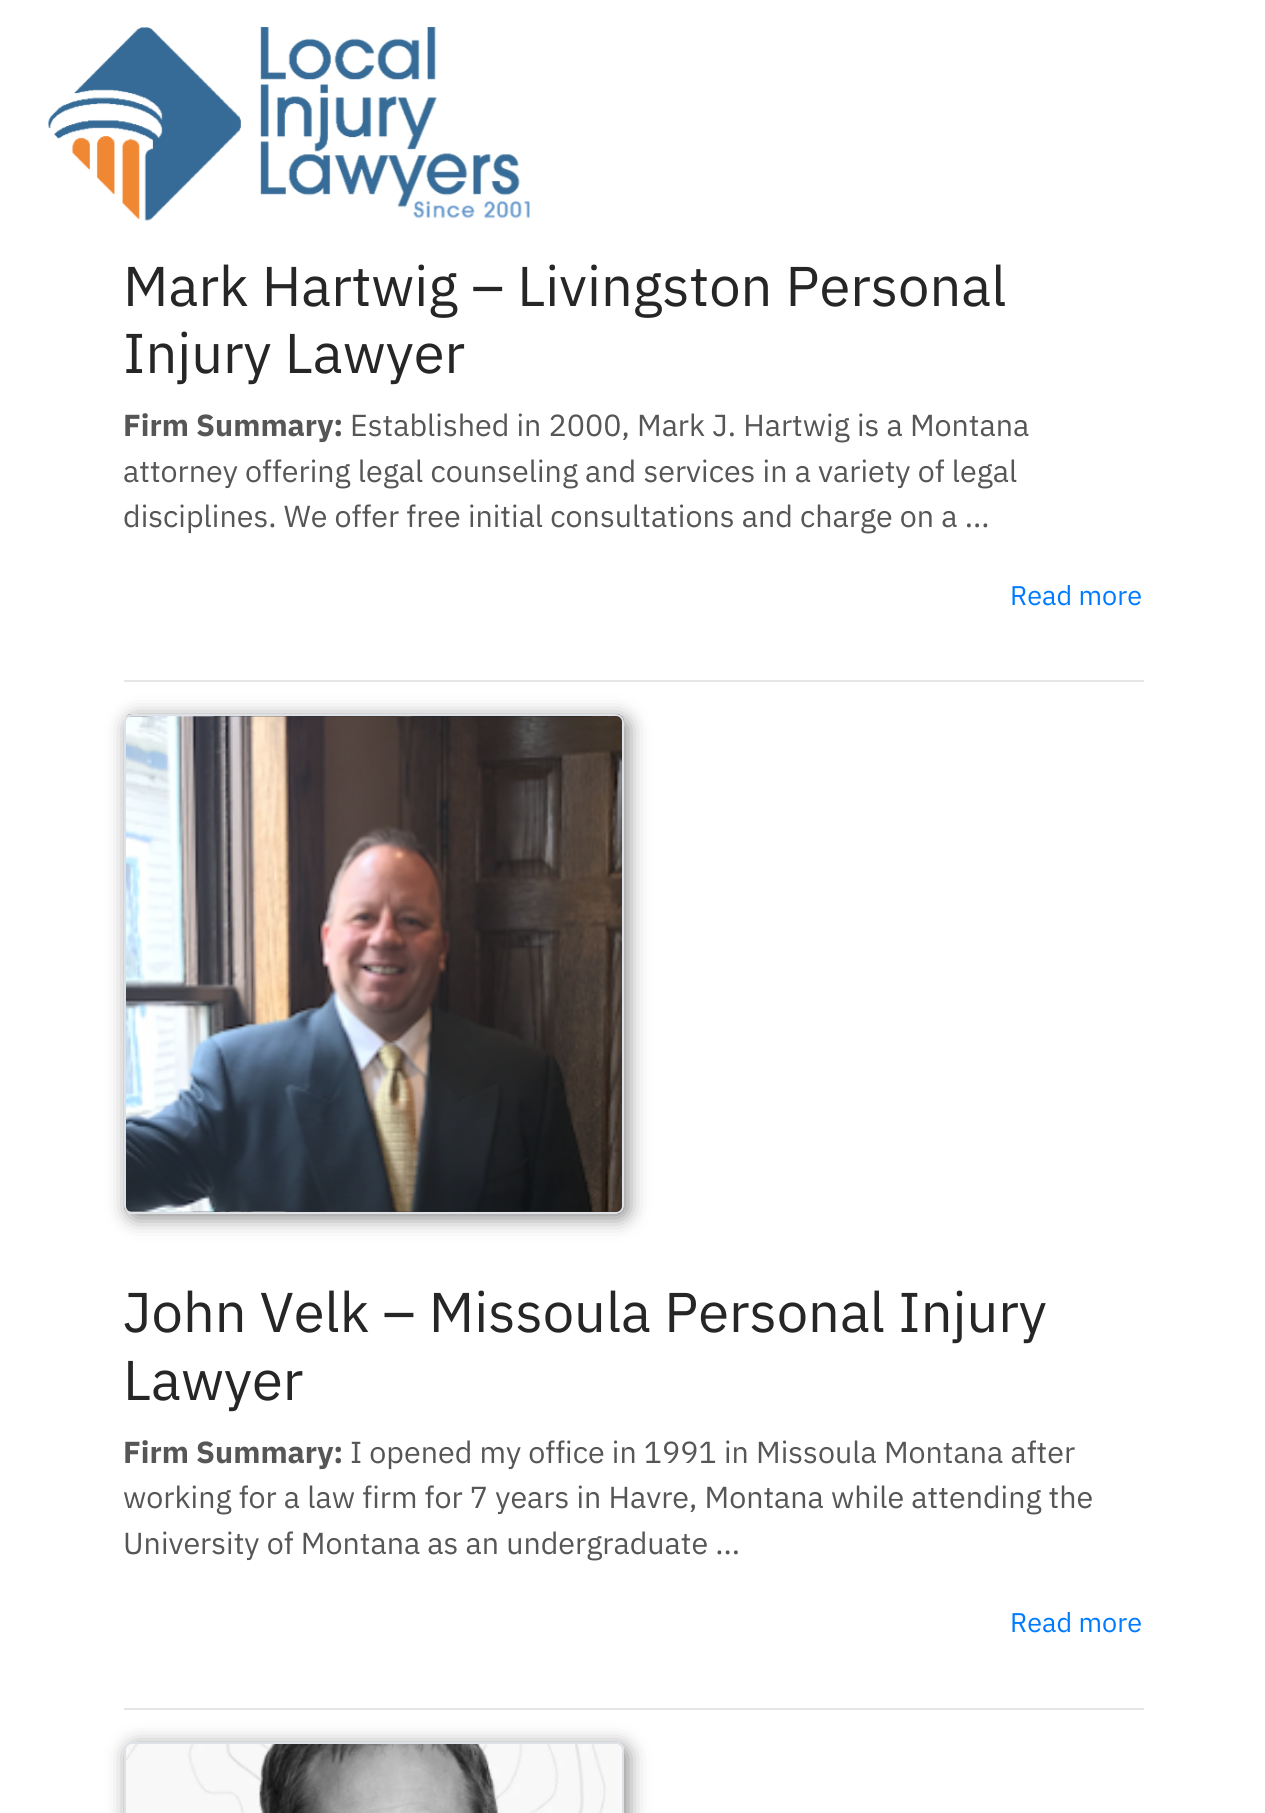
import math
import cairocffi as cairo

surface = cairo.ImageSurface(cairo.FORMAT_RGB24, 1265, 1813)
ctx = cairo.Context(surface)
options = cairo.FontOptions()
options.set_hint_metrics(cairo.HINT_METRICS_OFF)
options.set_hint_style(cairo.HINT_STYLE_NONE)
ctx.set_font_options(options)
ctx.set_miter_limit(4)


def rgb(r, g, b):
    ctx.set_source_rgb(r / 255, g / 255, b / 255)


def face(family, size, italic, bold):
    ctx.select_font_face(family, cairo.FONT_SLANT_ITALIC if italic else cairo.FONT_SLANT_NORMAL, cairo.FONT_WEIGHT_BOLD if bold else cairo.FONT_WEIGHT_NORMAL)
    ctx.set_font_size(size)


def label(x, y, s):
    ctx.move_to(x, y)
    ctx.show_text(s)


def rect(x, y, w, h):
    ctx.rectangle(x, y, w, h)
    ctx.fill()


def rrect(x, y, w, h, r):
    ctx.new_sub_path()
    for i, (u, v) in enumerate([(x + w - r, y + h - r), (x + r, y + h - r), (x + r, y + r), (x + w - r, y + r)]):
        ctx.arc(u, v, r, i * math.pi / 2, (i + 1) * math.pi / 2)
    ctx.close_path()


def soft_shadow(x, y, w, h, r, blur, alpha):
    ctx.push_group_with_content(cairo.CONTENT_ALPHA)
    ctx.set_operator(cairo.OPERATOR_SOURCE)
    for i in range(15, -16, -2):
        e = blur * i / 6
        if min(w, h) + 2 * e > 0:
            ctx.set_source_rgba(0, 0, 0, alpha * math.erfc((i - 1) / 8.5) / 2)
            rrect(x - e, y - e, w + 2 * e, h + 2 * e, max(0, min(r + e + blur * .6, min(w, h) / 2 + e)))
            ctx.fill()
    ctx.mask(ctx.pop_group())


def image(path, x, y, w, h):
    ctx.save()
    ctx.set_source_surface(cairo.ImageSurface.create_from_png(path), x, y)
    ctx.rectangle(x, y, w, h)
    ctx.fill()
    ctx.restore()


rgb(255, 255, 255)
ctx.paint()
image('image0.png', 48, 27, 482, 195)
face('IBM Plex Sans', 56, 0, 0)
rgb(38, 38, 38)
label(123, 306, 'Mark Hartwig – Livingston Personal')
label(123, 373, 'Injury Lawyer')
face('IBM Plex Sans', 30.4, 0, 1)
rgb(86, 86, 86)
label(123, 436, 'Firm Summary:')
face('IBM Plex Sans', 30.4, 0, 0)
label(350, 436, 'Established in 2000, Mark J. Hartwig is a Montana')
label(123, 482, 'attorney offering legal counseling and services in a variety of legal')
label(123, 527, 'disciplines. We offer free initial consultations and charge on a ...')
face('IBM Plex Sans', 27, 0, 0)
rgb(0, 123, 255)
label(1010, 605, 'Read more')
rgb(230, 230, 230)
rect(124, 680, 1020, 2)
rgb(136, 136, 136)
soft_shadow(128, 718, 500, 500, 8, 10, 1)
image('image1.png', 124, 714, 500, 500)
rrect(125, 715, 498, 498, 7)
rgb(222, 226, 230)
ctx.stroke()
face('IBM Plex Sans', 56, 0, 0)
rgb(38, 38, 38)
label(123, 1332, 'John Velk – Missoula Personal Injury')
label(123, 1400, 'Lawyer')
face('IBM Plex Sans', 30.4, 0, 1)
rgb(86, 86, 86)
label(123, 1463, 'Firm Summary:')
face('IBM Plex Sans', 30.4, 0, 0)
label(350, 1463, 'I opened my office in 1991 in Missoula Montana after')
label(123, 1508, 'working for a law firm for 7 years in Havre, Montana while attending the')
label(123, 1554, 'University of Montana as an undergraduate ...')
face('IBM Plex Sans', 27, 0, 0)
rgb(0, 123, 255)
label(1010, 1632, 'Read more')
rgb(230, 230, 230)
rect(124, 1708, 1020, 2)
rgb(136, 136, 136)
soft_shadow(128, 1746, 500, 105, 8, 10, 1)
image('image2.png', 124, 1742, 500, 71)
rrect(125, 1743, 498, 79, 7)
rgb(222, 226, 230)
ctx.stroke()
surface.write_to_png('render.png')
